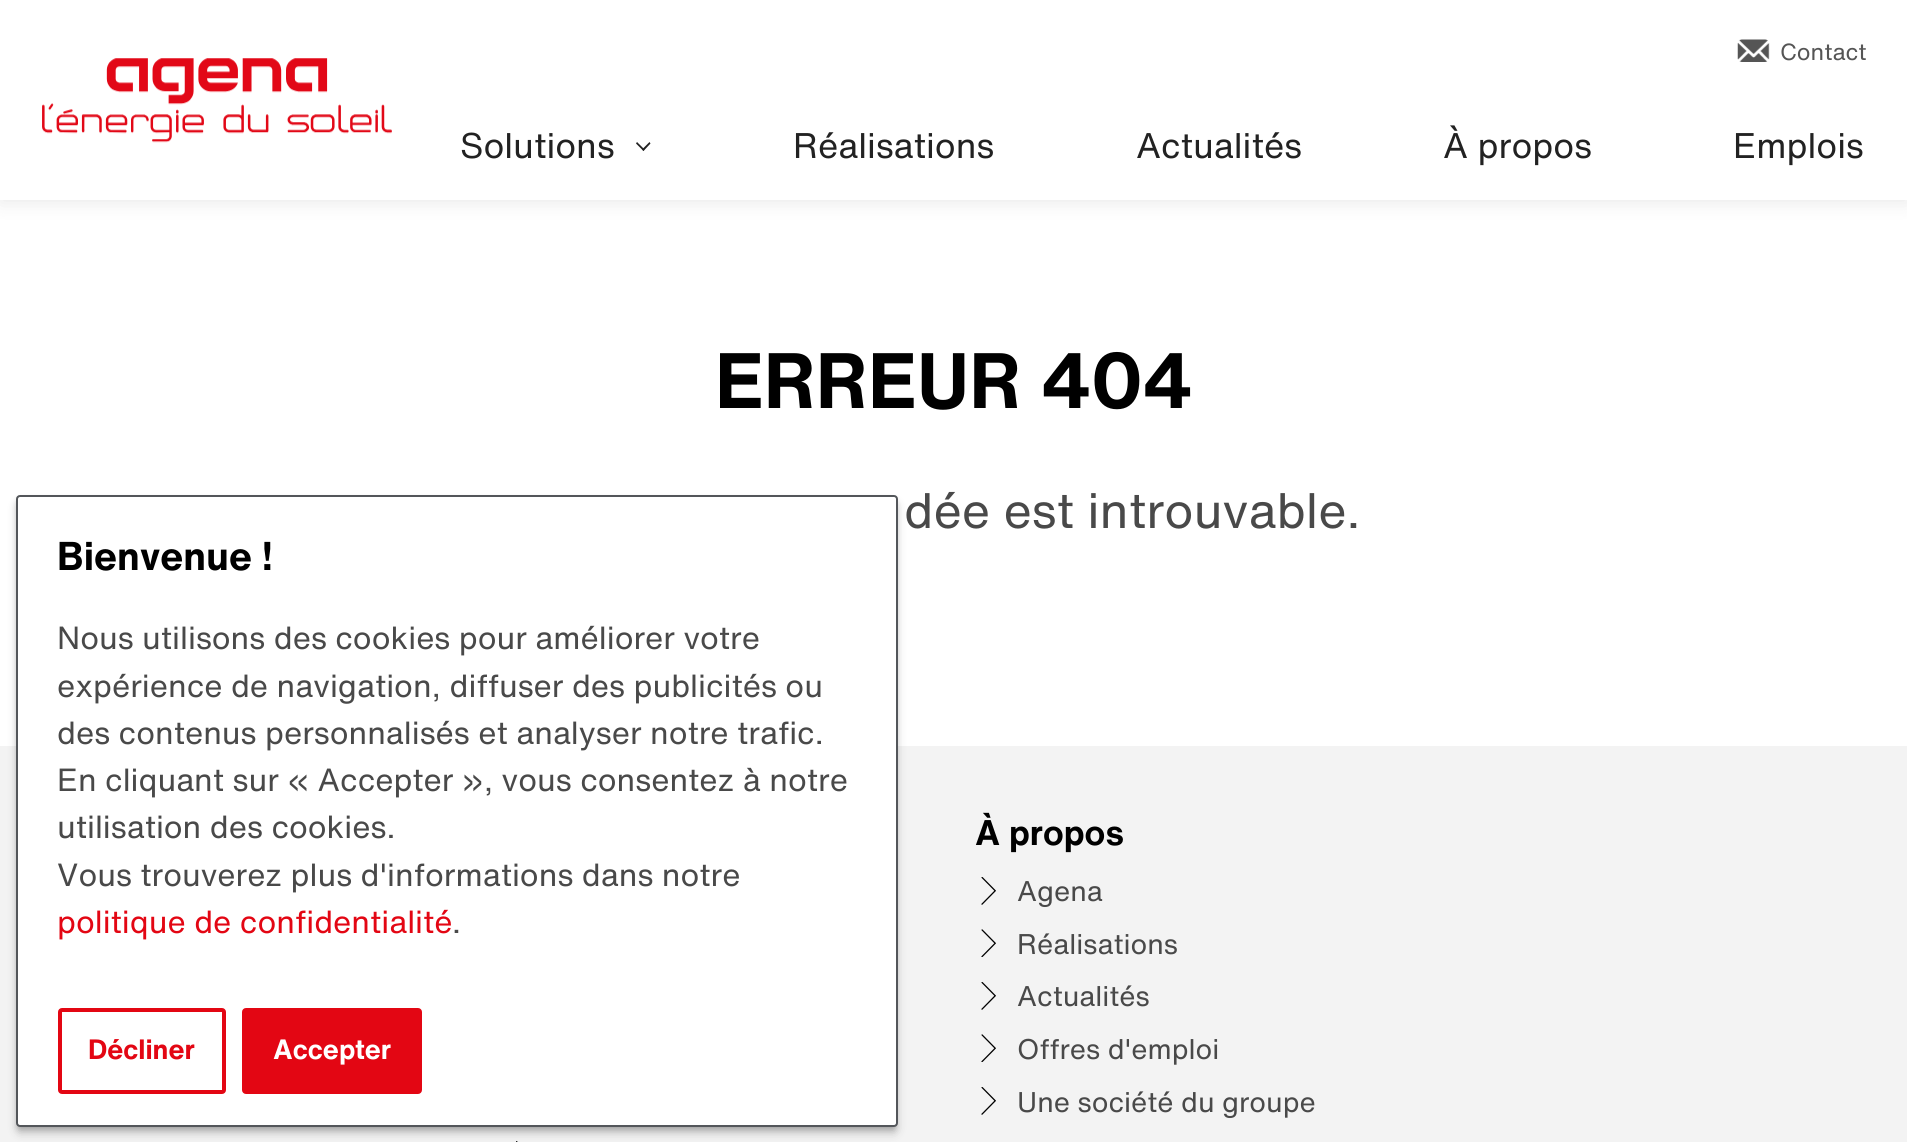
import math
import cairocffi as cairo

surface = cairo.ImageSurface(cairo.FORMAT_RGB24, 1907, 1142)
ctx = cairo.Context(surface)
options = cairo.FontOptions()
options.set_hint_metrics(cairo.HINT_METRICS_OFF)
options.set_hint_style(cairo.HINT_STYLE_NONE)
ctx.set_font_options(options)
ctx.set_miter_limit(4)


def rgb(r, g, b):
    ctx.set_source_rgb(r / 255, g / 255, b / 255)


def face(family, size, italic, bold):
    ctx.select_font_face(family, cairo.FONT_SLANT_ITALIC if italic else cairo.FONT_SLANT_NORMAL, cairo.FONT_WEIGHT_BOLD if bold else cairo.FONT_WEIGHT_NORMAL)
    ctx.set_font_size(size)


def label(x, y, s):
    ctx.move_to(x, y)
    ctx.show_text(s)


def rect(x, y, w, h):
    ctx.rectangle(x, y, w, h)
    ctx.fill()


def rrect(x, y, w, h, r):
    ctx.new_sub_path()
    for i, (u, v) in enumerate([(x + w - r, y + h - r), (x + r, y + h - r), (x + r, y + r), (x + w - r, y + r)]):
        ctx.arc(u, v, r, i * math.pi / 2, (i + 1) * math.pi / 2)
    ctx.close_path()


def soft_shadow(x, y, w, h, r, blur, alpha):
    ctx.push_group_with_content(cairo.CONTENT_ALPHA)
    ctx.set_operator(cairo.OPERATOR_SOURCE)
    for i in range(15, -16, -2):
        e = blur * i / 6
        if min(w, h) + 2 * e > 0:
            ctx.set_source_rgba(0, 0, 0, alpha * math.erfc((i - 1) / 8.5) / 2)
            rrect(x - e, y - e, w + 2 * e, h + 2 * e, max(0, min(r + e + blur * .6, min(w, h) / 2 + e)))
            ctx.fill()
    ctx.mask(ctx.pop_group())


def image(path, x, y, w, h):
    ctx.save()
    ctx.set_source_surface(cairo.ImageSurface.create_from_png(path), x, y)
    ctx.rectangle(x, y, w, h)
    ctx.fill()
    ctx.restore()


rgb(255, 255, 255)
ctx.paint()
rgb(243, 243, 243)
rect(0, 746, 1907, 396)
rgb(0, 0, 0)
soft_shadow(19, 502, 875, 625, 0, 3.5, 0.25)
image('image4.png', 516, 1141, 2, 1)
soft_shadow(18, 504, 878, 628, 2, 5, 0.25)
rgb(255, 255, 255)
rrect(17, 496, 880, 630, 3)
ctx.fill_preserve()
rgb(83, 86, 90)
ctx.stroke()
face('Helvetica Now', 39.5, 0, 1)
rgb(0, 0, 0)
label(57, 570, 'Bienvenue !')
face('Helvetica Now', 31.5, 0, 0)
rgb(73, 73, 73)
label(57, 649, 'Nous utilisons des cookies pour améliorer votre')
label(57, 697, 'expérience de navigation, diffuser des publicités ou')
label(57, 744, 'des contenus personnalisés et analyser notre trafic.')
label(57, 791, 'En cliquant sur « Accepter », vous consentez à notre')
label(57, 838, 'utilisation des cookies.')
label(57, 886, 'Vous trouverez plus d\'informations dans notre')
rgb(227, 6, 19)
label(57, 933, 'politique de confidentialité')
rgb(73, 73, 73)
label(452, 933, '.')
rrect(60, 1010, 164, 82, 2)
rgb(227, 6, 19)
ctx.set_line_width(4)
ctx.stroke()
face('Helvetica Now', 27.5, 0, 1)
label(88, 1059, 'Décliner')
rrect(244, 1010, 176, 82, 2)
ctx.fill_preserve()
ctx.stroke()
rgb(255, 255, 255)
label(273, 1059, 'Accepter')
rgb(34, 34, 34)
soft_shadow(0, 4, 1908, 199, 0, 9, 0.1)
rgb(255, 255, 255)
rect(0, 0, 1907, 200)
image('image0.png', 42, 58, 350, 85)
image('image1.png', 1737, 39, 33, 23)
face('Helvetica Now', 23, 0, 0)
rgb(85, 85, 85)
label(1780, 60, 'Contact')
face('Helvetica Now', 35, 0, 0)
rgb(34, 34, 34)
label(460, 158, 'Solutions')
ctx.new_path()
ctx.move_to(649.5, 142)
ctx.line_to(650.5, 143.5)
ctx.line_to(643.5, 151)
ctx.line_to(642, 149.5)
ctx.close_path()
ctx.fill()
ctx.new_path()
ctx.move_to(637, 142)
ctx.line_to(644.5, 149.5)
ctx.line_to(643.5, 151)
ctx.line_to(636, 143.5)
ctx.close_path()
ctx.fill()
label(793, 158, 'Réalisations')
label(1136, 158, 'Actualités')
label(1443, 158, 'À propos')
label(1733, 158, 'Emplois')
face('Helvetica Now', 77, 0, 1)
rgb(0, 0, 0)
label(715, 408, 'ERREUR 404')
face('Helvetica Now', 49, 0, 0)
rgb(73, 73, 73)
label(904, 528, 'dée est introuvable.')
face('Helvetica Now', 35, 0, 1)
rgb(0, 0, 0)
label(975, 845, 'À propos')
image('image2.png', 981, 877, 15, 28)
face('Helvetica Now', 28, 0, 0)
rgb(73, 73, 73)
label(1017, 901, 'Agena')
image('image3.png', 981, 929, 15, 28)
label(1017, 954, 'Réalisations')
image('image2.png', 981, 982, 15, 28)
label(1017, 1006, 'Actualités')
image('image3.png', 981, 1034, 15, 28)
label(1017, 1059, 'Offres d\'emploi')
image('image2.png', 981, 1087, 15, 28)
label(1017, 1112, 'Une société du groupe')
surface.write_to_png('render.png')
